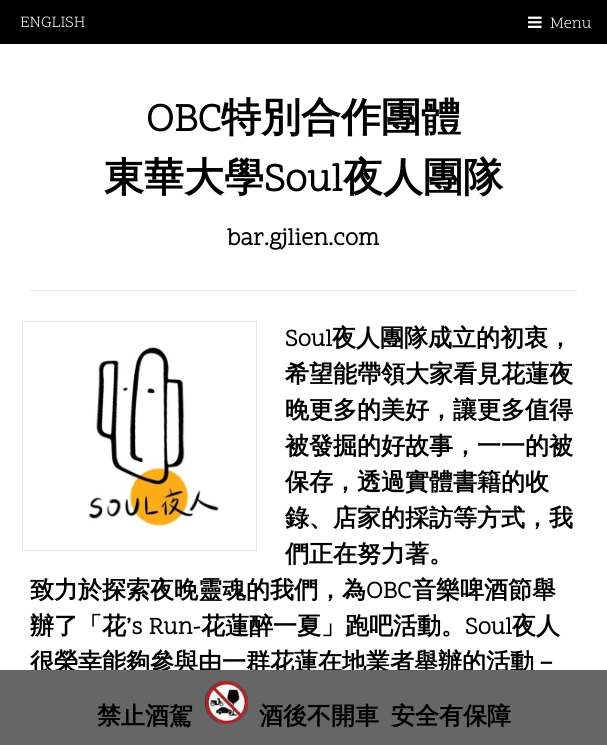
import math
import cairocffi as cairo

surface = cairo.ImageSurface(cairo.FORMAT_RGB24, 607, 745)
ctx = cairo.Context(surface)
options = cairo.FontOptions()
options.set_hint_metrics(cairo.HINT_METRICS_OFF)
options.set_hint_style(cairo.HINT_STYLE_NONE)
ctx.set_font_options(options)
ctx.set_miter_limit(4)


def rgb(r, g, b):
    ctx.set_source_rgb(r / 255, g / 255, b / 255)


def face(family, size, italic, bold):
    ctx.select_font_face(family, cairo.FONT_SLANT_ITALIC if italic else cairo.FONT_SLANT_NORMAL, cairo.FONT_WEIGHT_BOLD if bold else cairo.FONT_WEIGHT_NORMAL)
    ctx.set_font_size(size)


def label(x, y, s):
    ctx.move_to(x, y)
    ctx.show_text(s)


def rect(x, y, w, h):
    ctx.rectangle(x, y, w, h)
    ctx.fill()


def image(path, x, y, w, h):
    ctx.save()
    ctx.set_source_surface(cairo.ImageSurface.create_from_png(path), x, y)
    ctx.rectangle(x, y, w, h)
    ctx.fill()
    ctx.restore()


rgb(255, 255, 255)
ctx.paint()
rgb(0, 0, 0)
rect(0, 0, 607, 44)
face('Scope One', 16, 0, 0)
rgb(255, 255, 255)
label(20, 27, 'ENGLISH')
image('image0.png', 528, 16, 14, 12)
label(550, 28, 'Menu')
face('Scope One', 40, 0, 1)
rgb(0, 0, 0)
label(146, 131, 'OBC')
face('WenQuanYi Zen Hei', 40, 0, 1)
label(221, 131, '特別合作團體')
label(104, 191, '東華大學')
face('Scope One', 40, 0, 1)
label(264, 191, 'Soul')
face('WenQuanYi Zen Hei', 40, 0, 1)
label(343, 191, '夜人團隊')
face('Scope One', 24, 0, 1)
label(227, 245, 'bar.gjlien.com')
rgb(230, 230, 230)
rect(30, 290, 547, 1)
ctx.rectangle(26, 325, 227, 222)
ctx.set_line_width(8)
ctx.stroke()
ctx.rectangle(26.5, 325.5, 226, 221)
rgb(255, 255, 255)
ctx.set_line_width(7)
ctx.stroke()
image('image1.png', 88, 346, 131, 182)
rgb(0, 0, 0)
label(285, 346, 'Soul')
face('WenQuanYi Zen Hei', 24, 0, 1)
label(332, 346, '夜人團隊成立的初衷，')
label(285, 382, '希望能帶領大家看見花蓮夜')
label(285, 418, '晚更多的美好，讓更多值得')
label(285, 454, '被發掘的好故事，一一的被')
label(285, 490, '保存，透過實體書籍的收')
label(285, 526, '錄、店家的採訪等方式，我')
label(285, 562, '們正在努力著。')
label(30, 598, '致力於探索夜晚靈魂的我們，為')
face('Scope One', 24, 0, 1)
label(366, 598, 'OBC')
face('WenQuanYi Zen Hei', 24, 0, 1)
label(412, 598, '音樂啤酒節舉')
label(30, 634, '辦了「花')
face('Scope One', 24, 0, 1)
label(126, 634, '’s Run-')
face('WenQuanYi Zen Hei', 24, 0, 1)
label(201, 634, '花蓮醉一夏」跑吧活動。')
face('Scope One', 24, 0, 1)
label(465, 634, 'Soul')
face('WenQuanYi Zen Hei', 24, 0, 1)
label(512, 634, '夜人')
label(30, 670, '很榮幸能夠參與由一群花蓮在地業者舉辦的活動－')
rgb(102, 102, 102)
rect(0, 670, 607, 75)
rgb(0, 0, 0)
label(97, 724, '禁止酒駕')
image('image2.png', 205, 681, 43, 43)
label(259, 724, '酒後不開車')
label(391, 724, '安全有保障')
surface.write_to_png('render.png')
